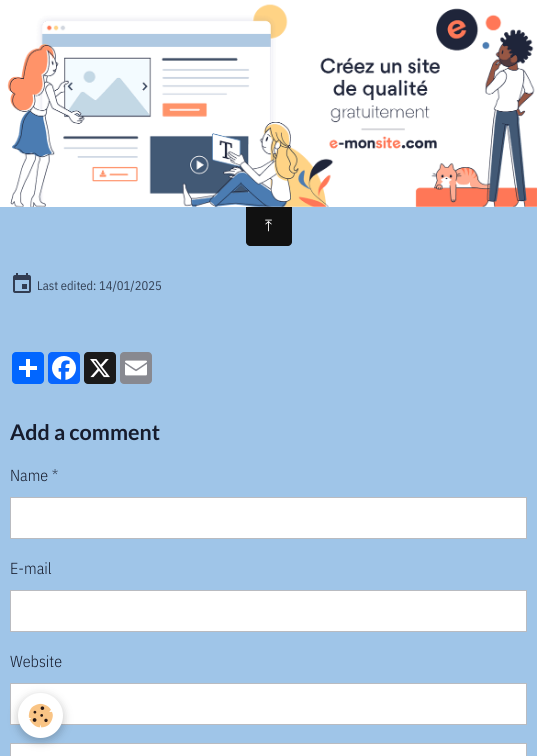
import math
import cairocffi as cairo

surface = cairo.ImageSurface(cairo.FORMAT_RGB24, 537, 756)
ctx = cairo.Context(surface)
options = cairo.FontOptions()
options.set_hint_metrics(cairo.HINT_METRICS_OFF)
options.set_hint_style(cairo.HINT_STYLE_NONE)
ctx.set_font_options(options)
ctx.set_miter_limit(4)


def rgb(r, g, b):
    ctx.set_source_rgb(r / 255, g / 255, b / 255)


def face(family, size, italic, bold):
    ctx.select_font_face(family, cairo.FONT_SLANT_ITALIC if italic else cairo.FONT_SLANT_NORMAL, cairo.FONT_WEIGHT_BOLD if bold else cairo.FONT_WEIGHT_NORMAL)
    ctx.set_font_size(size)


def label(x, y, s):
    ctx.move_to(x, y)
    ctx.show_text(s)


def rect(x, y, w, h):
    ctx.rectangle(x, y, w, h)
    ctx.fill()


def rrect(x, y, w, h, r):
    ctx.new_sub_path()
    for i, (u, v) in enumerate([(x + w - r, y + h - r), (x + r, y + h - r), (x + r, y + r), (x + w - r, y + r)]):
        ctx.arc(u, v, r, i * math.pi / 2, (i + 1) * math.pi / 2)
    ctx.close_path()


def soft_shadow(x, y, w, h, r, blur, alpha):
    ctx.push_group_with_content(cairo.CONTENT_ALPHA)
    ctx.set_operator(cairo.OPERATOR_SOURCE)
    for i in range(15, -16, -2):
        e = blur * i / 6
        if min(w, h) + 2 * e > 0:
            ctx.set_source_rgba(0, 0, 0, alpha * math.erfc((i - 1) / 8.5) / 2)
            rrect(x - e, y - e, w + 2 * e, h + 2 * e, max(0, min(r + e + blur * .6, min(w, h) / 2 + e)))
            ctx.fill()
    ctx.mask(ctx.pop_group())


def image(path, x, y, w, h):
    ctx.save()
    ctx.set_source_surface(cairo.ImageSurface.create_from_png(path), x, y)
    ctx.rectangle(x, y, w, h)
    ctx.fill()
    ctx.restore()


rgb(159, 197, 232)
ctx.paint()
rgb(255, 255, 255)
rect(0, 0, 537, 207)
image('image0.png', 7, 4, 530, 203)
rgb(17, 17, 17)
ctx.new_path()
ctx.move_to(246, 207)
ctx.line_to(292, 207)
ctx.line_to(292, 242)
ctx.curve_to(292, 244, 290, 246, 288, 246)
ctx.line_to(250, 246)
ctx.curve_to(248, 246, 246, 244, 246, 242)
ctx.close_path()
ctx.fill()
face('FreeSerif', 16, 0, 0)
rgb(255, 255, 255)
label(265, 231, '⤒')
image('image1.png', 13, 273, 18, 20)
face('IBM Plex Sans Condensed', 12.5, 0, 0)
rgb(49, 62, 82)
label(37, 290, 'Last edited: 14/01/2025')
rgb(1, 102, 255)
rrect(12, 352, 32, 32, 4)
ctx.fill()
rgb(255, 255, 255)
rect(26, 359, 4, 18)
rect(19, 366, 18, 4)
rgb(8, 102, 255)
rrect(48, 352, 32, 32, 4)
ctx.fill()
image('image2.png', 52, 356, 24, 24)
rgb(26, 26, 26)
rrect(84, 352, 32, 32, 4)
ctx.fill()
image('image3.png', 90, 359, 20, 19)
rgb(136, 137, 144)
rrect(120, 352, 32, 32, 4)
ctx.fill()
image('image4.png', 125, 360, 22, 16)
face('Lato', 21.5, 0, 1)
rgb(22, 28, 45)
label(10, 440, 'Add a comment')
face('IBM Plex Sans Condensed Light', 16, 0, 0)
label(10, 481, 'Name')
rgb(49, 62, 82)
label(52, 481, '*')
rgb(255, 255, 255)
ctx.rectangle(10.5, 497.5, 516, 41)
ctx.fill_preserve()
rgb(185, 187, 192)
ctx.set_line_width(1)
ctx.stroke()
rgb(22, 28, 45)
label(10, 574, 'E-mail')
rgb(255, 255, 255)
ctx.rectangle(10.5, 590.5, 516, 41)
ctx.fill_preserve()
rgb(185, 187, 192)
ctx.stroke()
rgb(22, 28, 45)
label(10, 667, 'Website')
rgb(255, 255, 255)
ctx.rectangle(10.5, 683.5, 516, 41)
ctx.fill_preserve()
rgb(185, 187, 192)
ctx.stroke()
rgb(255, 255, 255)
ctx.rectangle(10.5, 743.5, 516, 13)
ctx.fill_preserve()
rgb(185, 187, 192)
ctx.stroke()
rgb(0, 0, 0)
soft_shadow(18, 696, 45, 45, 22.5, 5, 0.24)
rgb(255, 255, 255)
ctx.arc(40.5, 715.5, 22.5, 0, 2 * math.pi)
ctx.fill()
image('image5.png', 28, 703, 25, 25)
surface.write_to_png('render.png')
